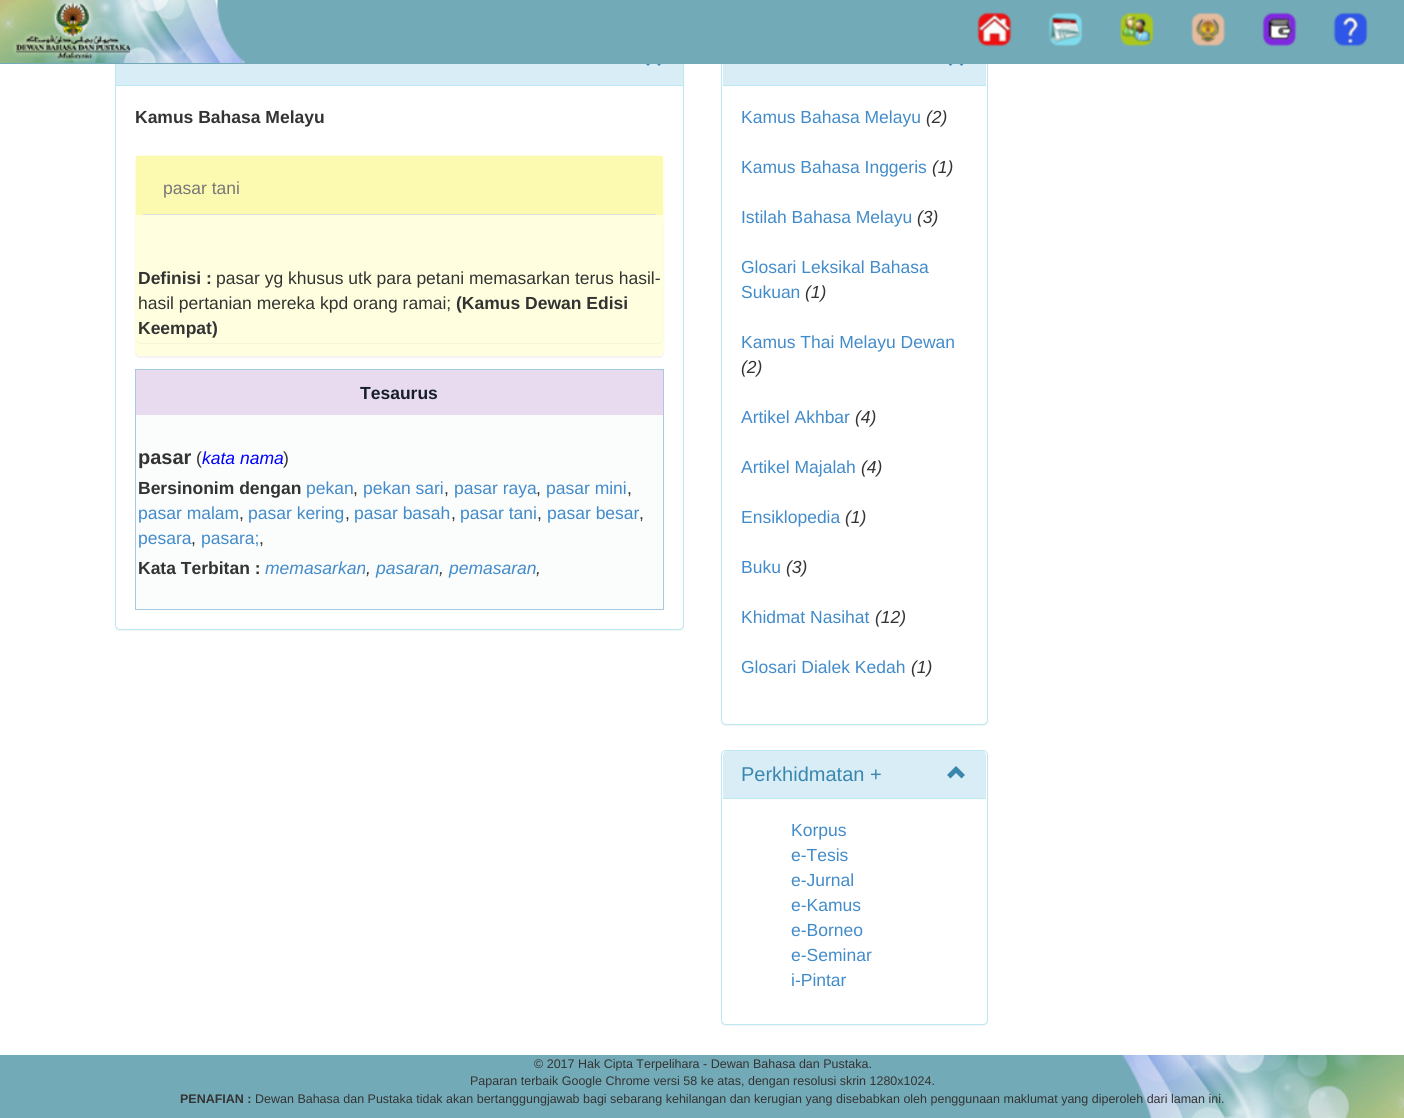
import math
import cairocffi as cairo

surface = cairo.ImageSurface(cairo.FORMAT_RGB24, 1404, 1118)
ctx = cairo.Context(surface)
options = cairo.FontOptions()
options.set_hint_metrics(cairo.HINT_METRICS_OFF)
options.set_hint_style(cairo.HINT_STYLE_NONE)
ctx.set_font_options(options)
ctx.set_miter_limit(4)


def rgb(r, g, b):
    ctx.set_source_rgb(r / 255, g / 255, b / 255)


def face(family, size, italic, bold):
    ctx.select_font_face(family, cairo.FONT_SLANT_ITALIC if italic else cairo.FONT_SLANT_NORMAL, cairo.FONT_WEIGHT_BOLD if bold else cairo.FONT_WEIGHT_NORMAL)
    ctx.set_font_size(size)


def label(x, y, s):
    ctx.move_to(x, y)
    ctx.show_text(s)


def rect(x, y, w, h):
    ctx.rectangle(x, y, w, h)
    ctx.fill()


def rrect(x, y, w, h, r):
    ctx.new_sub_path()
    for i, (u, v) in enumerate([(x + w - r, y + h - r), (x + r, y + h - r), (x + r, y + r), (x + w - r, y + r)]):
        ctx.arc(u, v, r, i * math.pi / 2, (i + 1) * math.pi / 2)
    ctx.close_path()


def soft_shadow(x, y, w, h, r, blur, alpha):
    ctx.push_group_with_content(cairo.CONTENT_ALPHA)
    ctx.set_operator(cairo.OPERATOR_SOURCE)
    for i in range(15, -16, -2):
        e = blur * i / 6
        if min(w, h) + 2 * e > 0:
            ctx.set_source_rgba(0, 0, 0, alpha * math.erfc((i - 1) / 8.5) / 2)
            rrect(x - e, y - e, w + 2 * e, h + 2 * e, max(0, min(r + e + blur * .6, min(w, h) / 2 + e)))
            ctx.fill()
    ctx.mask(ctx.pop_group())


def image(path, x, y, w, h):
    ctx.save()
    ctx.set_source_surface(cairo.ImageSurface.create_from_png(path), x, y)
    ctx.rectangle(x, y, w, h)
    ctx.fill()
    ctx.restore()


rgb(255, 255, 255)
ctx.paint()
rgb(0, 0, 0)
soft_shadow(115, 38, 569, 593, 5, 0.5, 0.05)
rgb(255, 255, 255)
rrect(115.5, 36.5, 568, 593, 4.5)
ctx.fill_preserve()
rgb(188, 232, 241)
ctx.set_line_width(1)
ctx.stroke()
rgb(217, 237, 247)
rect(116, 64, 567, 21)
rgb(58, 135, 173)
ctx.new_path()
ctx.move_to(659, 66)
ctx.line_to(662.5, 62.5)
ctx.line_to(653.5, 53.5)
ctx.line_to(644.5, 62.5)
ctx.line_to(648, 66)
ctx.line_to(653.5, 60.5)
ctx.close_path()
ctx.fill()
rgb(0, 0, 0)
soft_shadow(721, 38, 267, 688, 5, 0.5, 0.05)
rgb(255, 255, 255)
rrect(721.5, 36.5, 266, 688, 4.5)
ctx.fill_preserve()
rgb(188, 232, 241)
ctx.stroke()
rgb(217, 237, 247)
rect(723, 64, 263, 21)
rgb(58, 135, 173)
ctx.new_path()
ctx.move_to(961.5, 66)
ctx.line_to(965, 62.5)
ctx.line_to(956, 53.5)
ctx.line_to(947, 62.5)
ctx.line_to(950.5, 66)
ctx.line_to(956, 60.5)
ctx.close_path()
ctx.fill()
rgb(115, 170, 183)
rect(0, 0, 1404, 64)
image('image0.png', 0, 0, 245, 63)
image('image1.png', 977, 12, 35, 35)
image('image2.png', 1048, 12, 35, 35)
image('image3.png', 1119, 12, 36, 35)
image('image4.png', 1191, 12, 35, 35)
image('image5.png', 1262, 12, 35, 35)
image('image6.png', 1333, 12, 35, 35)
rgb(188, 232, 241)
rect(116, 85, 567, 1)
face('Liberation Sans', 17.5, 0, 1)
rgb(51, 51, 51)
label(135, 123, 'Kamus Bahasa Melayu')
rgb(0, 0, 0)
soft_shadow(135, 156, 529, 202, 5, 0.5, 0.05)
rgb(255, 255, 224)
rrect(135, 155, 529, 201, 5)
ctx.fill()
rgb(252, 249, 176)
rect(136, 156, 527, 59)
rgb(221, 221, 221)
rect(143, 214, 513, 1)
face('Liberation Sans', 17.5, 0, 0)
rgb(119, 119, 119)
label(163, 194, 'pasar tani')
rgb(0, 0, 0)
soft_shadow(136, 216, 527, 128, 5, 0.5, 0.05)
rgb(255, 255, 224)
rrect(136, 215, 527, 128, 5)
ctx.fill()
face('Liberation Sans', 17.5, 0, 1)
rgb(51, 51, 51)
label(138, 284, 'Definisi :')
face('Liberation Sans', 17.5, 0, 0)
label(216, 284, 'pasar yg khusus utk para petani memasarkan terus hasil-')
label(138, 309, 'hasil pertanian mereka kpd orang ramai;')
face('Liberation Sans', 17.5, 0, 1)
label(456, 309, '(Kamus Dewan Edisi')
label(138, 334, 'Keempat)')
rgb(166, 201, 226)
rect(135, 369, 529, 1)
rgb(251, 252, 252)
rect(136, 551, 528, 3)
rgb(166, 201, 226)
rect(663, 369, 1, 241)
rect(135, 609, 529, 1)
rect(135, 369, 1, 241)
rgb(232, 218, 239)
rect(136, 370, 527, 45)
rgb(23, 32, 42)
label(360, 399, 'Tesaurus')
rgb(251, 252, 252)
rect(136, 415, 527, 136)
face('Liberation Sans', 20, 0, 1)
rgb(51, 51, 51)
label(138, 464, 'pasar')
face('Liberation Sans', 17.5, 0, 0)
label(196, 464, '(')
face('Liberation Sans', 17.5, 1, 0)
rgb(0, 0, 255)
label(202, 464, 'kata nama')
face('Liberation Sans', 17.5, 0, 0)
rgb(51, 51, 51)
label(283, 464, ')')
face('Liberation Sans', 17.5, 0, 1)
label(138, 494, 'Bersinonim dengan')
face('Liberation Sans', 17.5, 0, 0)
rgb(66, 139, 202)
label(306, 494, 'pekan')
rgb(51, 51, 51)
label(353, 494, ',')
rgb(66, 139, 202)
label(363, 494, 'pekan sari')
rgb(51, 51, 51)
label(444, 494, ',')
rgb(66, 139, 202)
label(454, 494, 'pasar raya')
rgb(51, 51, 51)
label(536, 494, ',')
rgb(66, 139, 202)
label(546, 494, 'pasar mini')
rgb(51, 51, 51)
label(627, 494, ',')
rgb(66, 139, 202)
label(138, 519, 'pasar malam')
rgb(51, 51, 51)
label(239, 519, ',')
rgb(66, 139, 202)
label(248, 519, 'pasar kering')
rgb(51, 51, 51)
label(345, 519, ',')
rgb(66, 139, 202)
label(354, 519, 'pasar basah')
rgb(51, 51, 51)
label(451, 519, ',')
rgb(66, 139, 202)
label(460, 519, 'pasar tani')
rgb(51, 51, 51)
label(537, 519, ',')
rgb(66, 139, 202)
label(547, 519, 'pasar besar')
rgb(51, 51, 51)
label(639, 519, ',')
rgb(66, 139, 202)
label(138, 544, 'pesara')
rgb(51, 51, 51)
label(191, 544, ',')
rgb(66, 139, 202)
label(201, 544, 'pasara;')
rgb(51, 51, 51)
label(259, 544, ',')
rgb(251, 252, 252)
rect(136, 554, 527, 55)
face('Liberation Sans', 17.5, 0, 1)
rgb(51, 51, 51)
label(138, 574, 'Kata Terbitan :')
face('Liberation Sans', 17.5, 1, 0)
rgb(66, 139, 202)
label(265, 574, 'memasarkan')
rgb(51, 51, 51)
label(366, 574, ',')
rgb(66, 139, 202)
label(376, 574, 'pasaran')
rgb(51, 51, 51)
label(439, 574, ',')
rgb(66, 139, 202)
label(449, 574, 'pemasaran')
rgb(51, 51, 51)
label(536, 574, ',')
rgb(188, 232, 241)
rect(723, 85, 263, 1)
face('Liberation Sans', 17.5, 0, 0)
rgb(66, 139, 202)
label(741, 123, 'Kamus Bahasa Melayu')
face('Liberation Sans', 17.5, 1, 0)
rgb(51, 51, 51)
label(926, 123, '(2)')
face('Liberation Sans', 17.5, 0, 0)
rgb(66, 139, 202)
label(741, 173, 'Kamus Bahasa Inggeris')
face('Liberation Sans', 17.5, 1, 0)
rgb(51, 51, 51)
label(932, 173, '(1)')
face('Liberation Sans', 17.5, 0, 0)
rgb(66, 139, 202)
label(741, 223, 'Istilah Bahasa Melayu')
face('Liberation Sans', 17.5, 1, 0)
rgb(51, 51, 51)
label(917, 223, '(3)')
face('Liberation Sans', 17.5, 0, 0)
rgb(66, 139, 202)
label(741, 273, 'Glosari Leksikal Bahasa')
label(741, 298, 'Sukuan')
face('Liberation Sans', 17.5, 1, 0)
rgb(51, 51, 51)
label(805, 298, '(1)')
face('Liberation Sans', 17.5, 0, 0)
rgb(66, 139, 202)
label(741, 348, 'Kamus Thai Melayu Dewan')
face('Liberation Sans', 17.5, 1, 0)
rgb(51, 51, 51)
label(741, 373, '(2)')
face('Liberation Sans', 17.5, 0, 0)
rgb(66, 139, 202)
label(741, 423, 'Artikel Akhbar')
face('Liberation Sans', 17.5, 1, 0)
rgb(51, 51, 51)
label(855, 423, '(4)')
face('Liberation Sans', 17.5, 0, 0)
rgb(66, 139, 202)
label(741, 473, 'Artikel Majalah')
face('Liberation Sans', 17.5, 1, 0)
rgb(51, 51, 51)
label(861, 473, '(4)')
face('Liberation Sans', 17.5, 0, 0)
rgb(66, 139, 202)
label(741, 523, 'Ensiklopedia')
face('Liberation Sans', 17.5, 1, 0)
rgb(51, 51, 51)
label(845, 523, '(1)')
face('Liberation Sans', 17.5, 0, 0)
rgb(66, 139, 202)
label(741, 573, 'Buku')
face('Liberation Sans', 17.5, 1, 0)
rgb(51, 51, 51)
label(786, 573, '(3)')
face('Liberation Sans', 17.5, 0, 0)
rgb(66, 139, 202)
label(741, 623, 'Khidmat Nasihat')
face('Liberation Sans', 17.5, 1, 0)
rgb(51, 51, 51)
label(875, 623, '(12)')
face('Liberation Sans', 17.5, 0, 0)
rgb(66, 139, 202)
label(741, 673, 'Glosari Dialek Kedah')
face('Liberation Sans', 17.5, 1, 0)
rgb(51, 51, 51)
label(911, 673, '(1)')
rgb(0, 0, 0)
soft_shadow(721, 751, 267, 275, 5, 0.5, 0.05)
rgb(255, 255, 255)
rrect(721.5, 750.5, 266, 274, 4.5)
ctx.fill_preserve()
rgb(188, 232, 241)
ctx.stroke()
rgb(217, 237, 247)
ctx.new_path()
ctx.move_to(727, 751)
ctx.line_to(982, 751)
ctx.curve_to(984, 751, 986, 753, 986, 755)
ctx.line_to(986, 799)
ctx.line_to(723, 799)
ctx.line_to(723, 755)
ctx.curve_to(723, 753, 725, 751, 727, 751)
ctx.close_path()
ctx.fill()
rgb(188, 232, 241)
rect(723, 798, 263, 1)
face('Liberation Sans', 20, 0, 0)
rgb(58, 135, 173)
label(741, 781, 'Perkhidmatan +')
ctx.new_path()
ctx.move_to(961.5, 778.5)
ctx.line_to(965, 775)
ctx.line_to(956, 766)
ctx.line_to(947, 775)
ctx.line_to(950.5, 778.5)
ctx.line_to(956, 773)
ctx.close_path()
ctx.fill()
face('Liberation Sans', 17.5, 0, 0)
rgb(66, 139, 202)
label(791, 836, 'Korpus')
label(791, 861, 'e-Tesis')
label(791, 886, 'e-Jurnal')
label(791, 911, 'e-Kamus')
label(791, 936, 'e-Borneo')
label(791, 961, 'e-Seminar')
label(791, 986, 'i-Pintar')
rgb(115, 170, 183)
rect(0, 1055, 1152, 63)
image('image7.png', 1122, 1055, 282, 63)
face('Liberation Sans', 12.5, 0, 0)
rgb(51, 51, 51)
label(534, 1068, '© 2017 Hak Cipta Terpelihara - Dewan Bahasa dan Pustaka.')
label(470, 1085, 'Paparan terbaik Google Chrome versi 58 ke atas, dengan resolusi skrin 1280x1024.')
face('Liberation Sans', 12.5, 0, 1)
label(180, 1103, 'PENAFIAN :')
face('Liberation Sans', 12.5, 0, 0)
label(255, 1103, 'Dewan Bahasa dan Pustaka tidak akan bertanggungjawab bagi sebarang kehilangan dan kerugian yang disebabkan oleh penggunaan maklumat yang diperoleh dari laman ini.')
surface.write_to_png('render.png')
